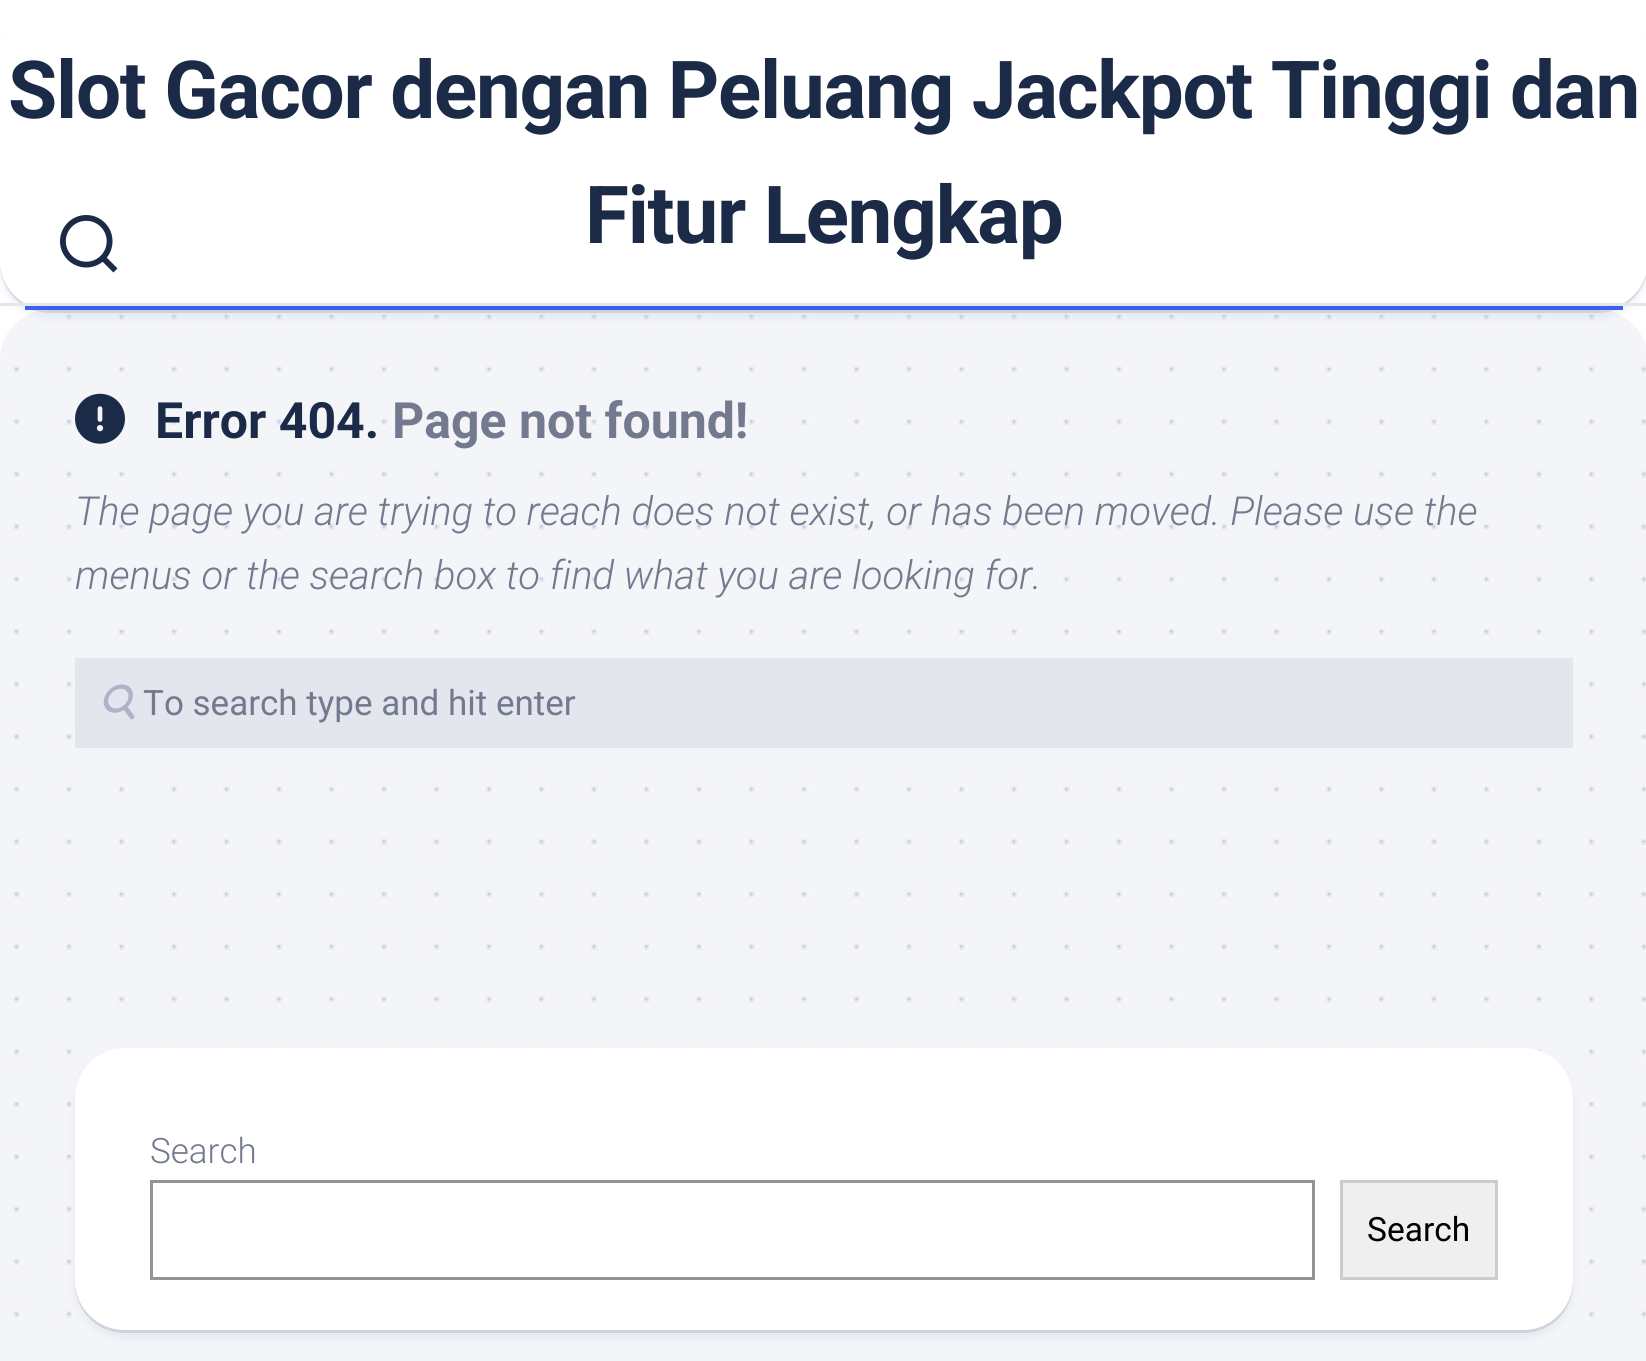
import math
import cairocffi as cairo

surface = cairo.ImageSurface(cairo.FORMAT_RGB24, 1646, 1361)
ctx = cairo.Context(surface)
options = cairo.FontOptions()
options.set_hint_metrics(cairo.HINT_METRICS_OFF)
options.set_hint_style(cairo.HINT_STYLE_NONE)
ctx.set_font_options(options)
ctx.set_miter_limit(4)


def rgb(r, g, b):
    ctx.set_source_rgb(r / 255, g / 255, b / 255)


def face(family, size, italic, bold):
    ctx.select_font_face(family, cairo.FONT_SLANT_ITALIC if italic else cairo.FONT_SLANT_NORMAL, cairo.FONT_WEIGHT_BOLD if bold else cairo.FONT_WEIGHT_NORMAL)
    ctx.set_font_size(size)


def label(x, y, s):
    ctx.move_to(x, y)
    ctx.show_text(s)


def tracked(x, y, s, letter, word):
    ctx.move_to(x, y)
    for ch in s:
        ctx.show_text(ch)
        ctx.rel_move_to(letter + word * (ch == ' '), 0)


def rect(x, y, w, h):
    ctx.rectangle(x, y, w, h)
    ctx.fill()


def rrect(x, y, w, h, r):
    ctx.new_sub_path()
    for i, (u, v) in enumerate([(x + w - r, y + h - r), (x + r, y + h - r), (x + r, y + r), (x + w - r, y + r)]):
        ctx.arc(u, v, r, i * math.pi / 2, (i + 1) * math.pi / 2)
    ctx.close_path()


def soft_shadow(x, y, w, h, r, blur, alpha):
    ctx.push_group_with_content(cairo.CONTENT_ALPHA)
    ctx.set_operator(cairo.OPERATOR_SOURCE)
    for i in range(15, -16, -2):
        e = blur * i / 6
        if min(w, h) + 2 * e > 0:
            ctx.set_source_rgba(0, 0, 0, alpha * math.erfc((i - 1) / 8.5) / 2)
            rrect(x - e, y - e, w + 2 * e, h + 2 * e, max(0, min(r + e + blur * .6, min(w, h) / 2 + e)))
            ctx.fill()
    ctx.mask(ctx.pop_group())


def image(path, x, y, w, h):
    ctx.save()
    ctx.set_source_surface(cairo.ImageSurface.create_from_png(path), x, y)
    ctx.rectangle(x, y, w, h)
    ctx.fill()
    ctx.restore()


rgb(255, 255, 255)
ctx.paint()
rgb(244, 245, 248)
rrect(0, 310, 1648, 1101, 50)
ctx.fill()
image('image1.png', 13, 314, 1633, 1004)
ctx.save()
ctx.set_fill_rule(cairo.FILL_RULE_EVEN_ODD)
ctx.new_path()
ctx.move_to(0, 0)
ctx.line_to(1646, 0)
ctx.line_to(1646, 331)
ctx.line_to(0, 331)
ctx.close_path()
ctx.move_to(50, 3)
ctx.line_to(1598, 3)
ctx.curve_to(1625.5, 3, 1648, 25.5, 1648, 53)
ctx.line_to(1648, 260)
ctx.curve_to(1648, 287.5, 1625.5, 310, 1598, 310)
ctx.line_to(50, 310)
ctx.curve_to(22.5, 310, 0, 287.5, 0, 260)
ctx.line_to(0, 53)
ctx.curve_to(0, 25.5, 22.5, 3, 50, 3)
ctx.close_path()
ctx.clip()
rgb(193, 203, 230)
soft_shadow(0, 10, 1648, 308, 50, 4, 0.3)
ctx.restore()
ctx.set_source_rgba(0, 0, 0, 0.1)
ctx.new_path()
ctx.move_to(0, 260)
ctx.line_to(0, 263)
ctx.curve_to(0, 291, 22, 313, 50, 313)
ctx.line_to(1598, 313)
ctx.curve_to(1626, 313, 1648, 291, 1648, 263)
ctx.line_to(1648, 55)
ctx.curve_to(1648, 51, 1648, 47, 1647, 44)
ctx.line_to(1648, 52)
ctx.line_to(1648, 260)
ctx.curve_to(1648, 288, 1625, 310, 1598, 310)
ctx.line_to(50, 310)
ctx.curve_to(22, 310, 0, 288, 0, 260)
ctx.close_path()
ctx.fill()
ctx.set_source_rgba(1, 1, 1, 0.9)
rrect(0, 3, 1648, 307, 50)
ctx.fill()
rgb(59, 97, 235)
rect(25, 306, 1598, 4)
rgb(228, 230, 237)
rect(0, 303, 1646, 3)
face('Roboto', 80, 0, 1)
rgb(27, 43, 71)
tracked(8, 118, 'Slot Gacor dengan Peluang Jackpot Tinggi dan', -1.25, 0)
tracked(585, 243, 'Fitur Lengkap', -1.25, 0)
image('image0.png', 60, 215, 58, 58)
image('image2.png', 75, 393, 50, 51)
face('Roboto', 50, 0, 1)
label(155, 438, 'Error 404.')
rgb(115, 121, 142)
label(392, 438, 'Page not found!')
face('Roboto Light', 40, 1, 0)
label(75, 525, 'The page you are trying to reach does not exist, or has been moved. Please use the')
label(75, 589, 'menus or the search box to find what you are looking for.')
rgb(228, 230, 237)
rect(75, 658, 1498, 90)
image('image3.png', 103, 684, 32, 36)
face('Roboto', 35, 0, 0)
rgb(115, 121, 142)
label(143, 715, 'To search type and hit enter')
rgb(193, 203, 230)
soft_shadow(75, 1055, 1498, 283, 50, 4, 0.3)
ctx.set_source_rgba(0, 0, 0, 0.1)
ctx.new_path()
ctx.move_to(75, 1280)
ctx.line_to(75, 1283)
ctx.curve_to(75, 1311, 97, 1333, 125, 1333)
ctx.line_to(1523, 1333)
ctx.curve_to(1551, 1333, 1573, 1311, 1573, 1283)
ctx.line_to(1573, 1100)
ctx.curve_to(1573, 1096, 1573, 1092, 1572, 1089)
ctx.line_to(1572, 1098)
ctx.line_to(1572, 1280)
ctx.curve_to(1572, 1308, 1550, 1330, 1522, 1330)
ctx.line_to(125, 1330)
ctx.curve_to(97, 1330, 75, 1308, 75, 1280)
ctx.close_path()
ctx.fill()
rgb(255, 255, 255)
rrect(75, 1048, 1498, 282, 50)
ctx.fill()
face('Roboto Light', 35, 0, 0)
rgb(115, 121, 142)
label(150, 1163, 'Search')
ctx.rectangle(151.5, 1181.5, 1162, 97)
rgb(148, 148, 148)
ctx.set_line_width(3)
ctx.stroke()
rgb(239, 239, 239)
ctx.rectangle(1341.5, 1181.5, 155, 97)
ctx.fill_preserve()
rgb(204, 204, 204)
ctx.stroke()
face('Roboto', 33.5, 0, 0)
rgb(0, 0, 0)
label(1367, 1241, 'Search')
surface.write_to_png('render.png')
